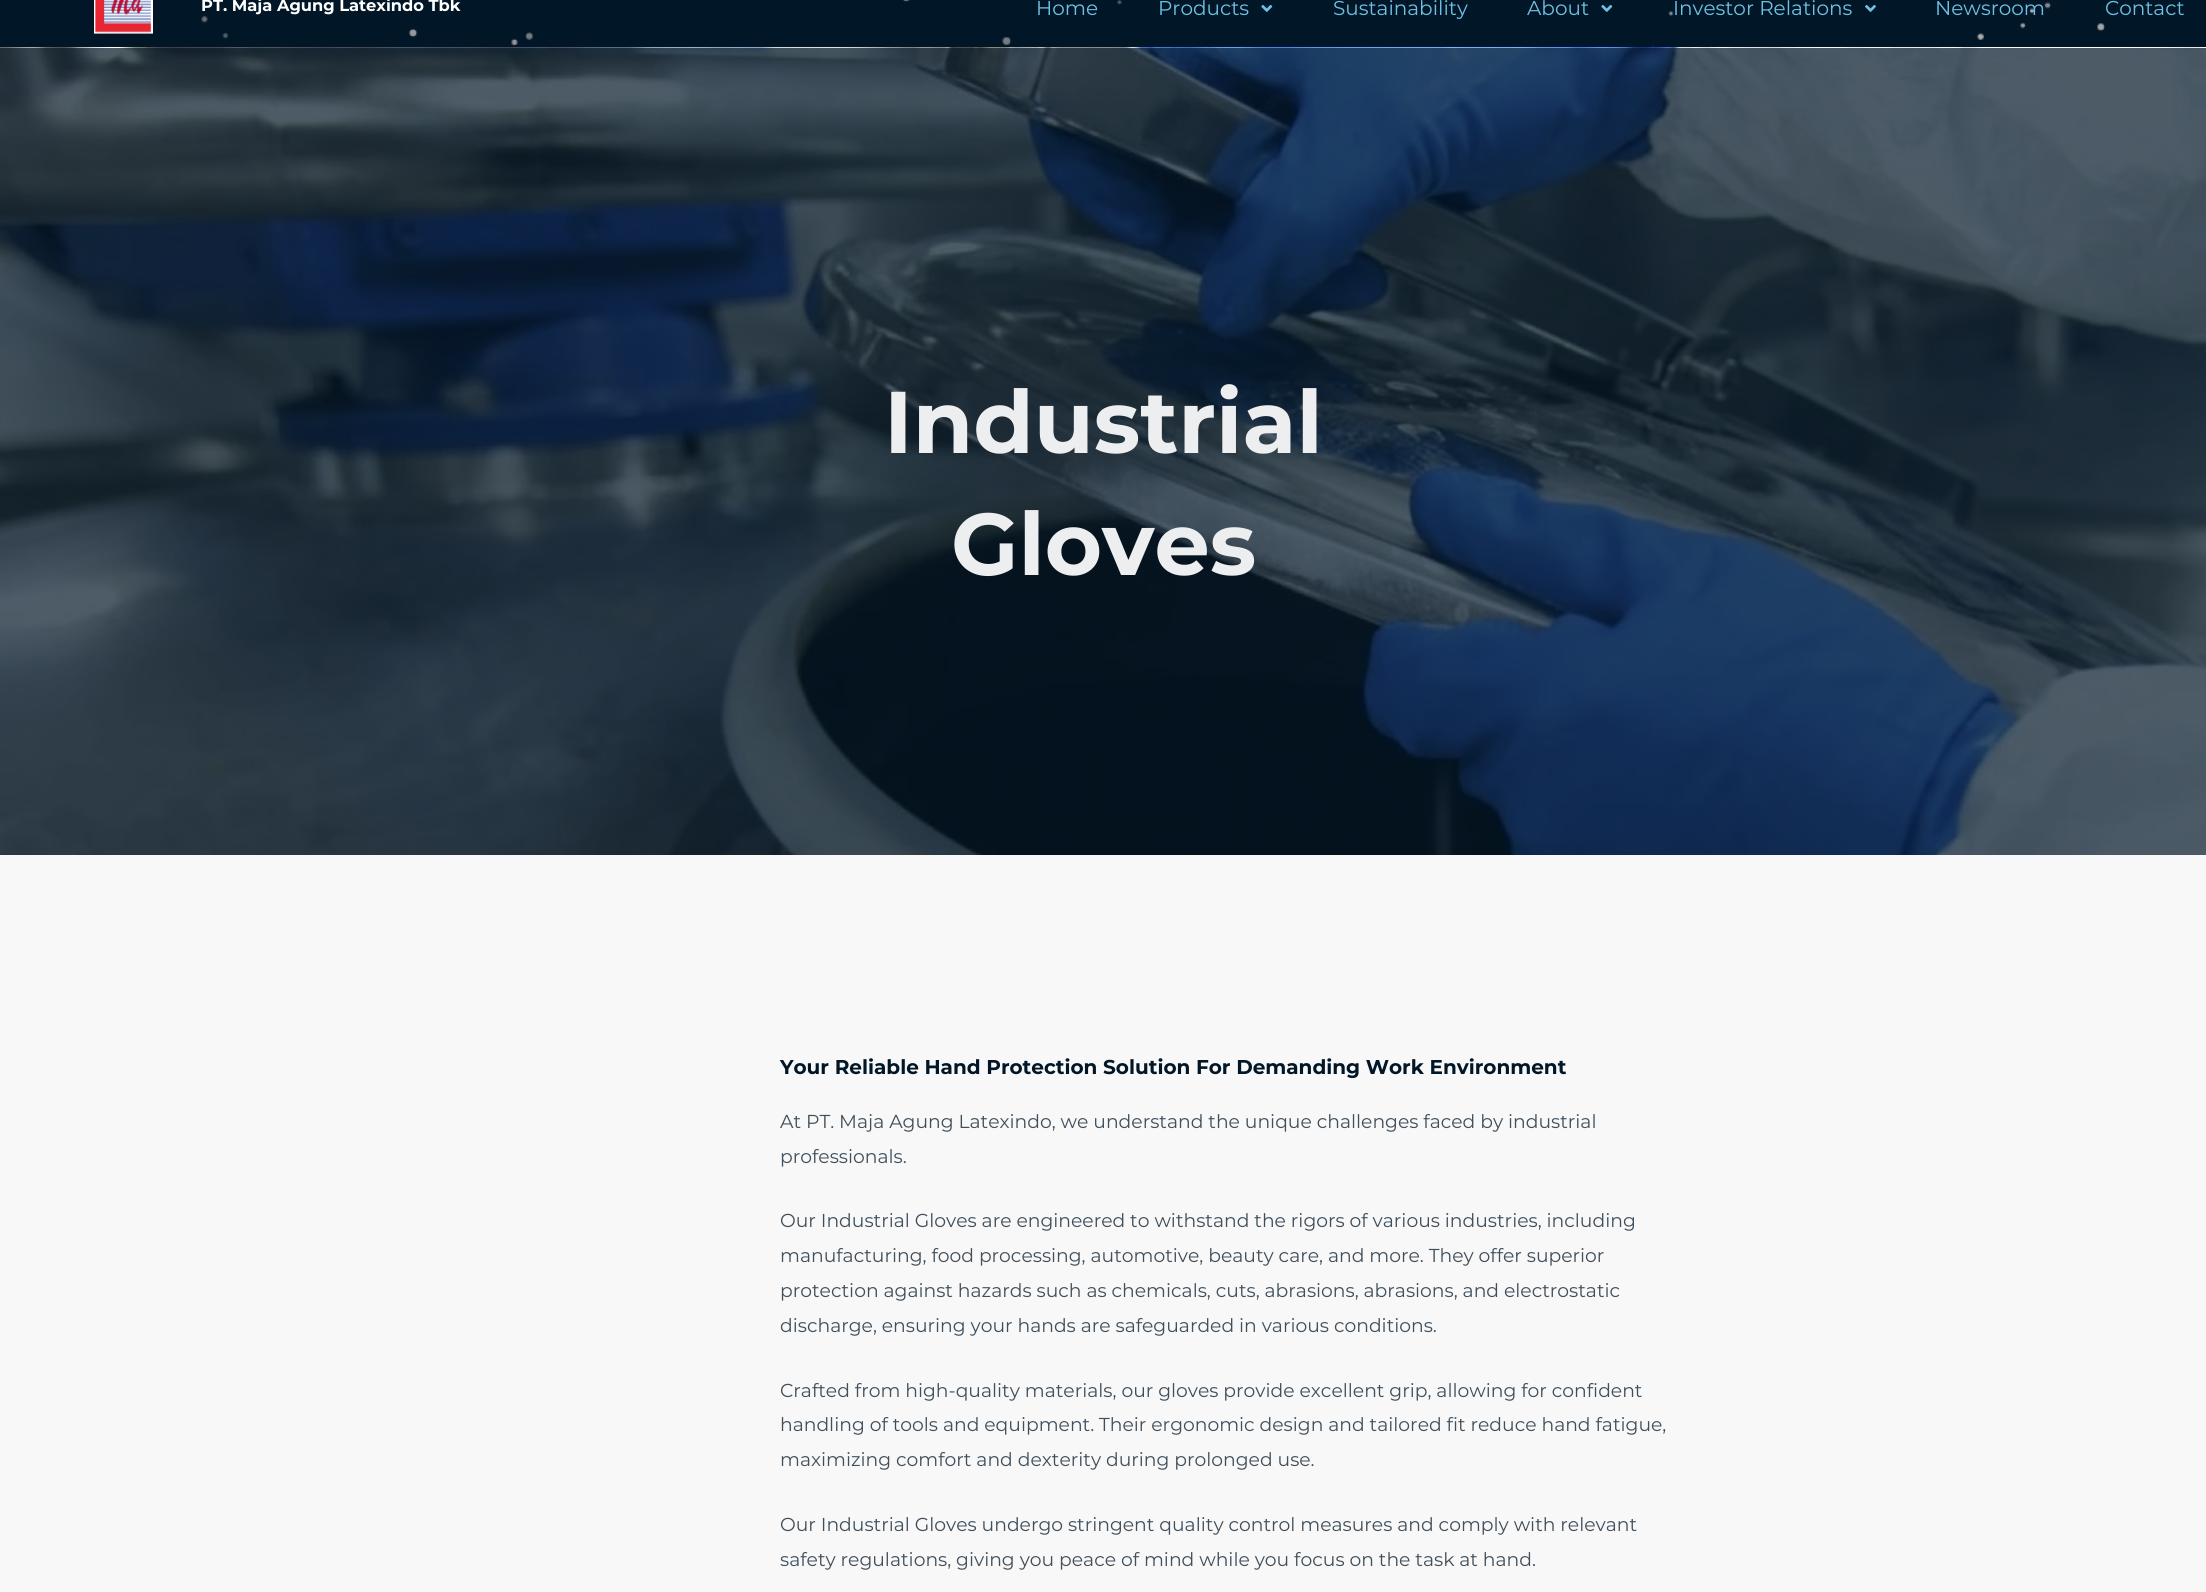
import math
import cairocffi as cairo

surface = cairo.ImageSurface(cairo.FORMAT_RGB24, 2206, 1592)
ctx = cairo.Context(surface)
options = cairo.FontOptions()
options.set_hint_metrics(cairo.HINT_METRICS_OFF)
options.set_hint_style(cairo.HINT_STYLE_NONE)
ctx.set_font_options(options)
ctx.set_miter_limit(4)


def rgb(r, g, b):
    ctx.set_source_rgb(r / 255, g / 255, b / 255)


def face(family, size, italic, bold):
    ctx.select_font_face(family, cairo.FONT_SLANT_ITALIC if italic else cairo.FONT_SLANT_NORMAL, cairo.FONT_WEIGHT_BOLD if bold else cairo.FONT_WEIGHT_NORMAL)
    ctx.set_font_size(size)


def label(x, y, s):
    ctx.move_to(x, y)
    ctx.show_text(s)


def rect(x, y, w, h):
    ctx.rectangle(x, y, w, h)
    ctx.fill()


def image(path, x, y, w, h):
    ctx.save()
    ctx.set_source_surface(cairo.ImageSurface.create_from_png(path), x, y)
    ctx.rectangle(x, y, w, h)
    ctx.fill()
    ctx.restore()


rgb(249, 248, 248)
ctx.paint()
rgb(1, 22, 39)
rect(0, 0, 2206, 47)
image('image0.png', 201, 0, 1904, 47)
image('image1.png', 94, 0, 59, 34)
face('Montserrat', 16.25, 0, 1)
rgb(255, 255, 255)
label(201, 11, 'PT. Maja Agung Latexindo Tbk')
face('Montserrat', 20, 0, 0)
rgb(110, 193, 228)
label(1036, 15, 'Home')
label(1158, 15, 'Products')
image('image2.png', 1261, 5, 12, 7)
label(1333, 15, 'Sustainability')
label(1527, 15, 'About')
image('image2.png', 1601, 5, 12, 7)
label(1673, 15, 'Investor Relations')
image('image3.png', 1865, 5, 11, 7)
label(1935, 15, 'Newsroom')
label(2105, 15, 'Contact')
image('image4.png', 0, 47, 2206, 808)
face('Montserrat', 87.5, 0, 1)
rgb(237, 238, 239)
label(884, 453, 'Industrial')
label(951, 575, 'Gloves')
face('Montserrat', 20, 0, 1)
rgb(1, 22, 39)
label(780, 1074, 'Your Reliable Hand Protection Solution For Demanding Work Environment')
face('Montserrat', 18.75, 0, 0)
rgb(63, 79, 91)
label(780, 1128, 'At PT. Maja Agung Latexindo, we understand the unique challenges faced by industrial')
label(780, 1163, 'professionals.')
label(780, 1227, 'Our Industrial Gloves are engineered to withstand the rigors of various industries, including')
label(780, 1262, 'manufacturing, food processing, automotive, beauty care, and more. They offer superior')
label(780, 1297, 'protection against hazards such as chemicals, cuts, abrasions, abrasions, and electrostatic')
label(780, 1332, 'discharge, ensuring your hands are safeguarded in various conditions.')
label(780, 1397, 'Crafted from high-quality materials, our gloves provide excellent grip, allowing for confident')
label(780, 1431, 'handling of tools and equipment. Their ergonomic design and tailored fit reduce hand fatigue,')
label(780, 1466, 'maximizing comfort and dexterity during prolonged use.')
label(780, 1531, 'Our Industrial Gloves undergo stringent quality control measures and comply with relevant')
label(780, 1566, 'safety regulations, giving you peace of mind while you focus on the task at hand.')
surface.write_to_png('render.png')
